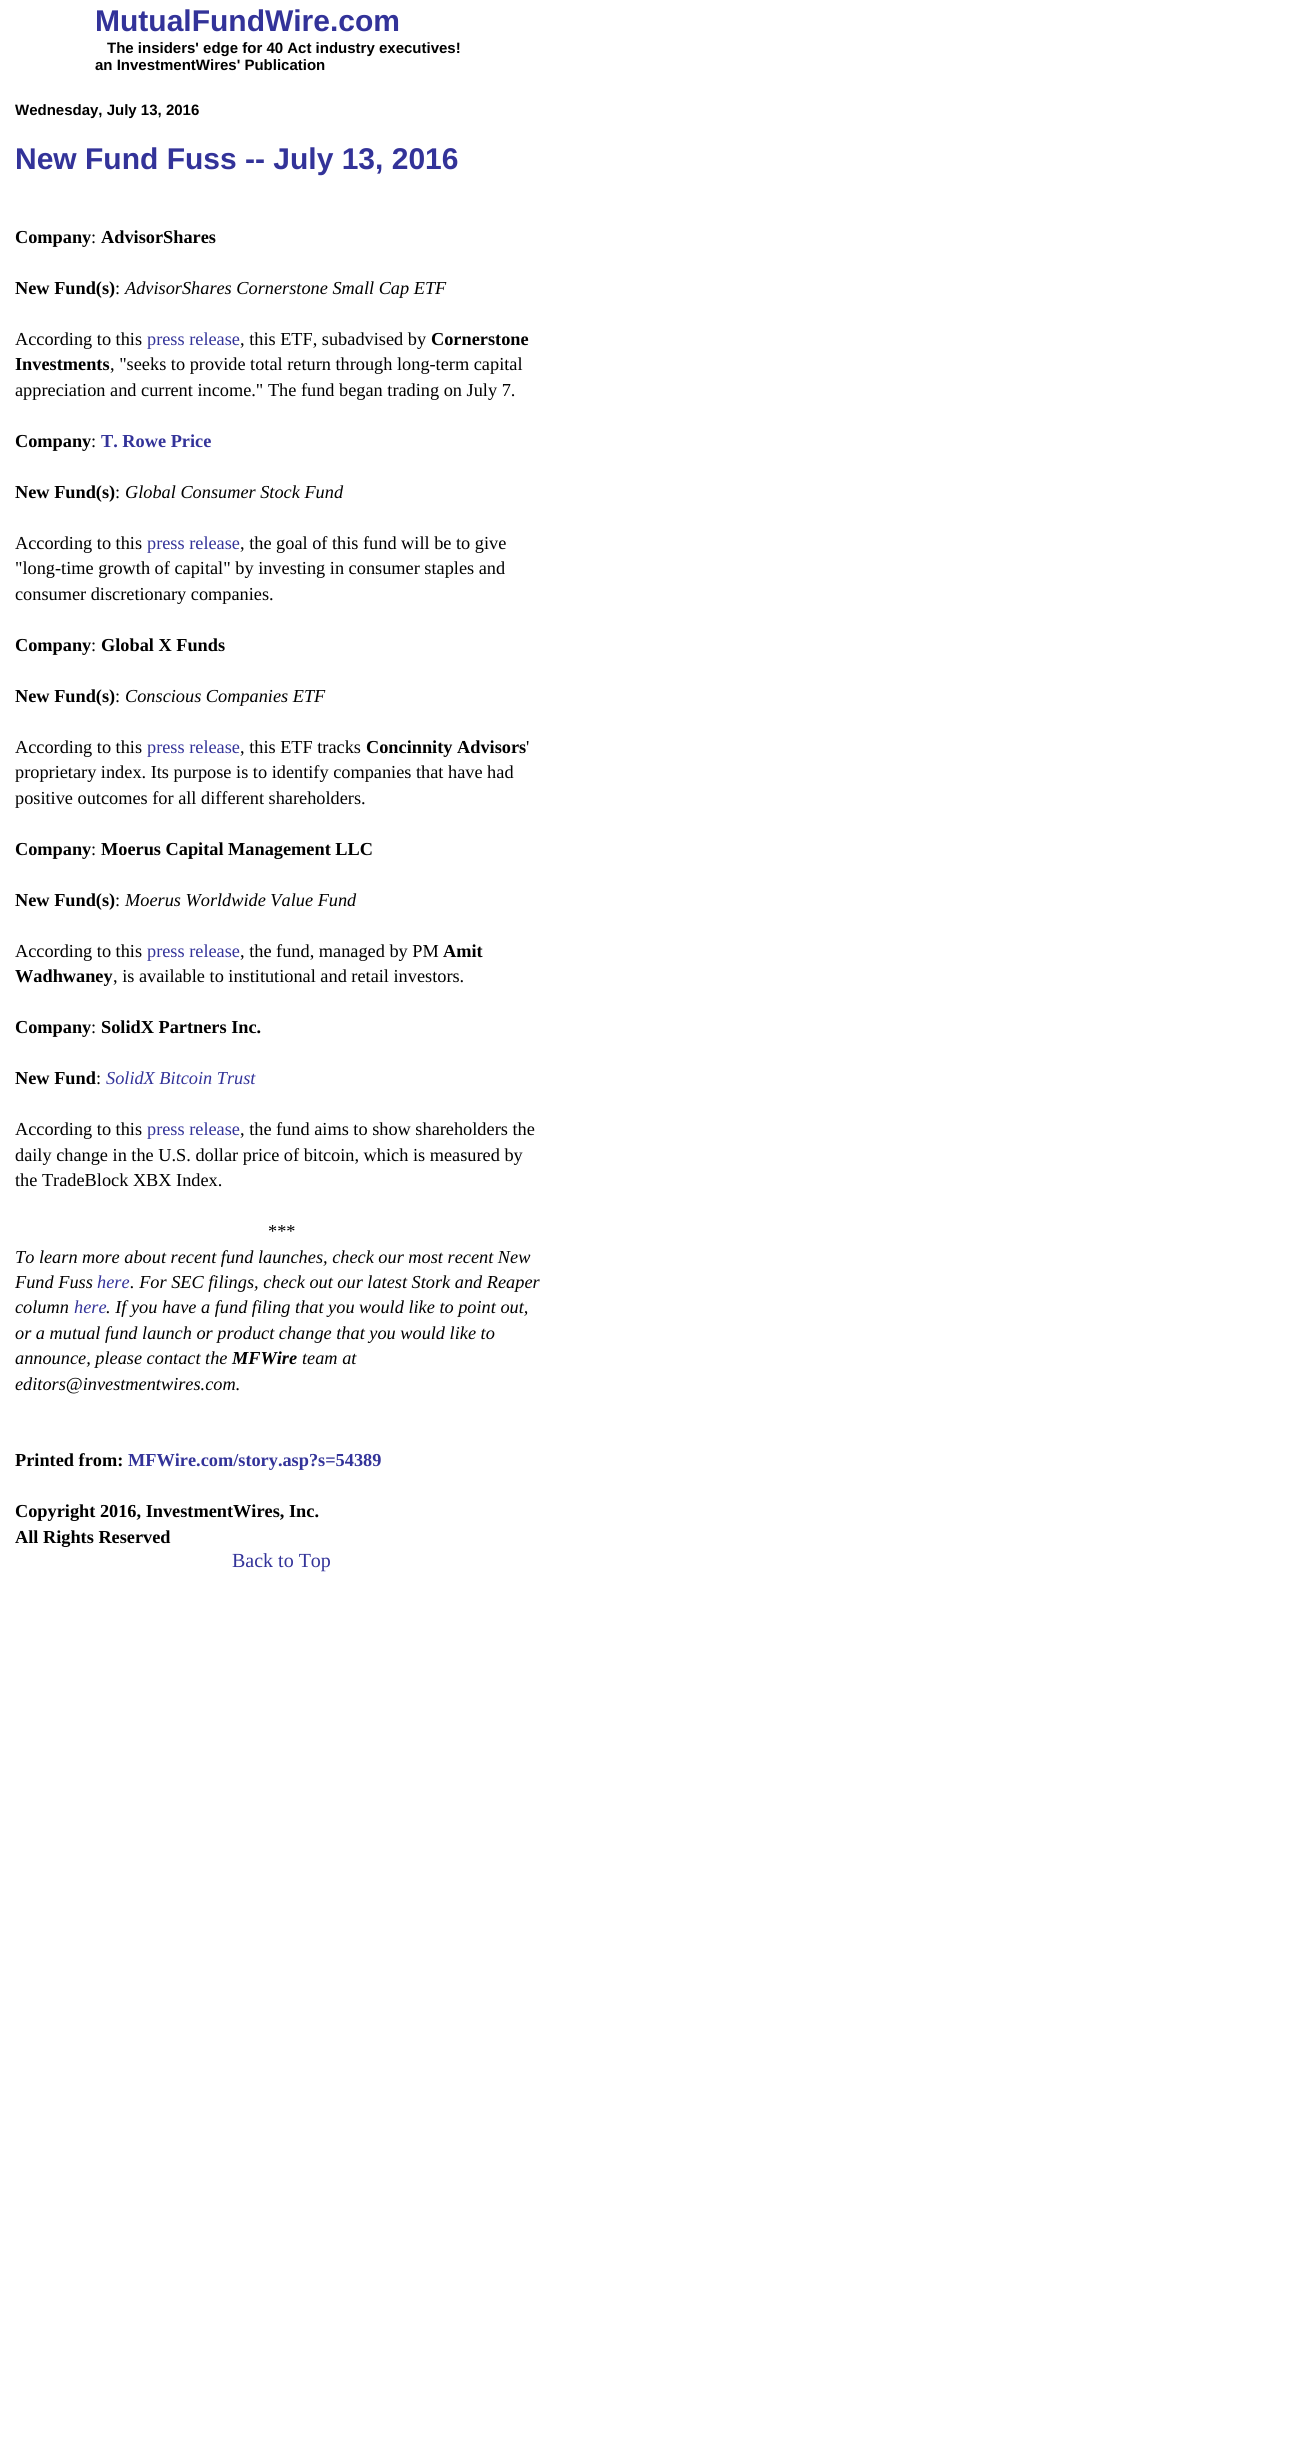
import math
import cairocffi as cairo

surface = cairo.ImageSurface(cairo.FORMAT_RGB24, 1293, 2449)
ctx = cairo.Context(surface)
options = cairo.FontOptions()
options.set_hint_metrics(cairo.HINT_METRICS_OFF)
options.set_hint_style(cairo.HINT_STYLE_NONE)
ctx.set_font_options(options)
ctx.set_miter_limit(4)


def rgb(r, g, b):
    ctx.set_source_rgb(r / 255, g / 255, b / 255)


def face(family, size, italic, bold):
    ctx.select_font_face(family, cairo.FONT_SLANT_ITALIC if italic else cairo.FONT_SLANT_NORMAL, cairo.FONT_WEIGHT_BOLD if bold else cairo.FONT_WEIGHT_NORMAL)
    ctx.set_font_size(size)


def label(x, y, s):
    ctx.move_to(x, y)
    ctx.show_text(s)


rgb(255, 255, 255)
ctx.paint()
face('Liberation Sans', 30, 0, 1)
rgb(51, 51, 153)
label(95, 31, 'MutualFundWire.com')
face('Liberation Sans', 15, 0, 1)
rgb(0, 0, 0)
label(107, 53, 'The insiders\' edge for 40 Act industry executives!')
label(95, 70, 'an InvestmentWires\' Publication')
label(15, 115, 'Wednesday, July 13, 2016')
face('Liberation Sans', 30, 0, 1)
rgb(51, 51, 153)
label(15, 169, 'New Fund Fuss -- July 13, 2016')
face('Liberation Serif', 18.3, 0, 1)
rgb(0, 0, 0)
label(15, 243, 'Company')
face('Liberation Serif', 18.3, 0, 0)
label(91, 243, ':')
face('Liberation Serif', 18.3, 0, 1)
label(101, 243, 'AdvisorShares')
label(15, 294, 'New Fund(s)')
face('Liberation Serif', 18.3, 0, 0)
label(115, 294, ':')
face('Liberation Serif', 18.3, 1, 0)
label(125, 294, 'AdvisorShares Cornerstone Small Cap ETF')
face('Liberation Serif', 18.3, 0, 0)
label(15, 345, 'According to this')
rgb(51, 51, 153)
label(147, 345, 'press release')
rgb(0, 0, 0)
label(240, 345, ', this ETF, subadvised by')
face('Liberation Serif', 18.3, 0, 1)
label(431, 345, 'Cornerstone')
label(15, 370, 'Investments')
face('Liberation Serif', 18.3, 0, 0)
label(110, 370, ', "seeks to provide total return through long-term capital')
label(15, 396, 'appreciation and current income." The fund began trading on July 7.')
face('Liberation Serif', 18.3, 0, 1)
label(15, 447, 'Company')
face('Liberation Serif', 18.3, 0, 0)
label(91, 447, ':')
face('Liberation Serif', 18.3, 0, 1)
rgb(51, 51, 153)
label(101, 447, 'T. Rowe Price')
rgb(0, 0, 0)
label(15, 498, 'New Fund(s)')
face('Liberation Serif', 18.3, 0, 0)
label(115, 498, ':')
face('Liberation Serif', 18.3, 1, 0)
label(125, 498, 'Global Consumer Stock Fund')
face('Liberation Serif', 18.3, 0, 0)
label(15, 549, 'According to this')
rgb(51, 51, 153)
label(147, 549, 'press release')
rgb(0, 0, 0)
label(240, 549, ', the goal of this fund will be to give')
label(15, 574, '"long-time growth of capital" by investing in consumer staples and')
label(15, 600, 'consumer discretionary companies.')
face('Liberation Serif', 18.3, 0, 1)
label(15, 651, 'Company')
face('Liberation Serif', 18.3, 0, 0)
label(91, 651, ':')
face('Liberation Serif', 18.3, 0, 1)
label(101, 651, 'Global X Funds')
label(15, 702, 'New Fund(s)')
face('Liberation Serif', 18.3, 0, 0)
label(115, 702, ':')
face('Liberation Serif', 18.3, 1, 0)
label(125, 702, 'Conscious Companies ETF')
face('Liberation Serif', 18.3, 0, 0)
label(15, 753, 'According to this')
rgb(51, 51, 153)
label(147, 753, 'press release')
rgb(0, 0, 0)
label(240, 753, ', this ETF tracks')
face('Liberation Serif', 18.3, 0, 1)
label(366, 753, 'Concinnity Advisors')
face('Liberation Serif', 18.3, 0, 0)
label(526, 753, '\'')
label(15, 778, 'proprietary index. Its purpose is to identify companies that have had')
label(15, 804, 'positive outcomes for all different shareholders.')
face('Liberation Serif', 18.3, 0, 1)
label(15, 855, 'Company')
face('Liberation Serif', 18.3, 0, 0)
label(91, 855, ':')
face('Liberation Serif', 18.3, 0, 1)
label(101, 855, 'Moerus Capital Management LLC')
label(15, 906, 'New Fund(s)')
face('Liberation Serif', 18.3, 0, 0)
label(115, 906, ':')
face('Liberation Serif', 18.3, 1, 0)
label(125, 906, 'Moerus Worldwide Value Fund')
face('Liberation Serif', 18.3, 0, 0)
label(15, 957, 'According to this')
rgb(51, 51, 153)
label(147, 957, 'press release')
rgb(0, 0, 0)
label(240, 957, ', the fund, managed by PM')
face('Liberation Serif', 18.3, 0, 1)
label(443, 957, 'Amit')
label(15, 982, 'Wadhwaney')
face('Liberation Serif', 18.3, 0, 0)
label(113, 982, ', is available to institutional and retail investors.')
face('Liberation Serif', 18.3, 0, 1)
label(15, 1033, 'Company')
face('Liberation Serif', 18.3, 0, 0)
label(91, 1033, ':')
face('Liberation Serif', 18.3, 0, 1)
label(101, 1033, 'SolidX Partners Inc.')
label(15, 1084, 'New Fund')
face('Liberation Serif', 18.3, 0, 0)
label(96, 1084, ':')
face('Liberation Serif', 18.3, 1, 0)
rgb(51, 51, 153)
label(106, 1084, 'SolidX Bitcoin Trust')
face('Liberation Serif', 18.3, 0, 0)
rgb(0, 0, 0)
label(15, 1135, 'According to this')
rgb(51, 51, 153)
label(147, 1135, 'press release')
rgb(0, 0, 0)
label(240, 1135, ', the fund aims to show shareholders the')
label(15, 1161, 'daily change in the U.S. dollar price of bitcoin, which is measured by')
label(15, 1186, 'the TradeBlock XBX Index.')
label(268, 1237, '***')
face('Liberation Serif', 18.3, 1, 0)
label(15, 1263, 'To learn more about recent fund launches, check our most recent New')
label(15, 1288, 'Fund Fuss')
rgb(51, 51, 153)
label(97, 1288, 'here')
rgb(0, 0, 0)
label(130, 1288, '. For SEC filings, check out our latest Stork and Reaper')
label(15, 1313, 'column')
rgb(51, 51, 153)
label(74, 1313, 'here')
rgb(0, 0, 0)
label(106, 1313, '. If you have a fund filing that you would like to point out,')
label(15, 1339, 'or a mutual fund launch or product change that you would like to')
label(15, 1364, 'announce, please contact the')
face('Liberation Serif', 18.3, 1, 1)
label(232, 1364, 'MFWire')
face('Liberation Serif', 18.3, 1, 0)
label(302, 1364, 'team at')
label(15, 1390, 'editors@investmentwires.com.')
face('Liberation Serif', 18.3, 0, 1)
label(15, 1466, 'Printed from:')
rgb(51, 51, 153)
label(128, 1466, 'MFWire.com/story.asp?s=54389')
rgb(0, 0, 0)
label(15, 1517, 'Copyright 2016, InvestmentWires, Inc.')
label(15, 1543, 'All Rights Reserved')
face('Liberation Serif', 20, 0, 0)
rgb(51, 51, 153)
label(232, 1567, 'Back to Top')
surface.write_to_png('render.png')
